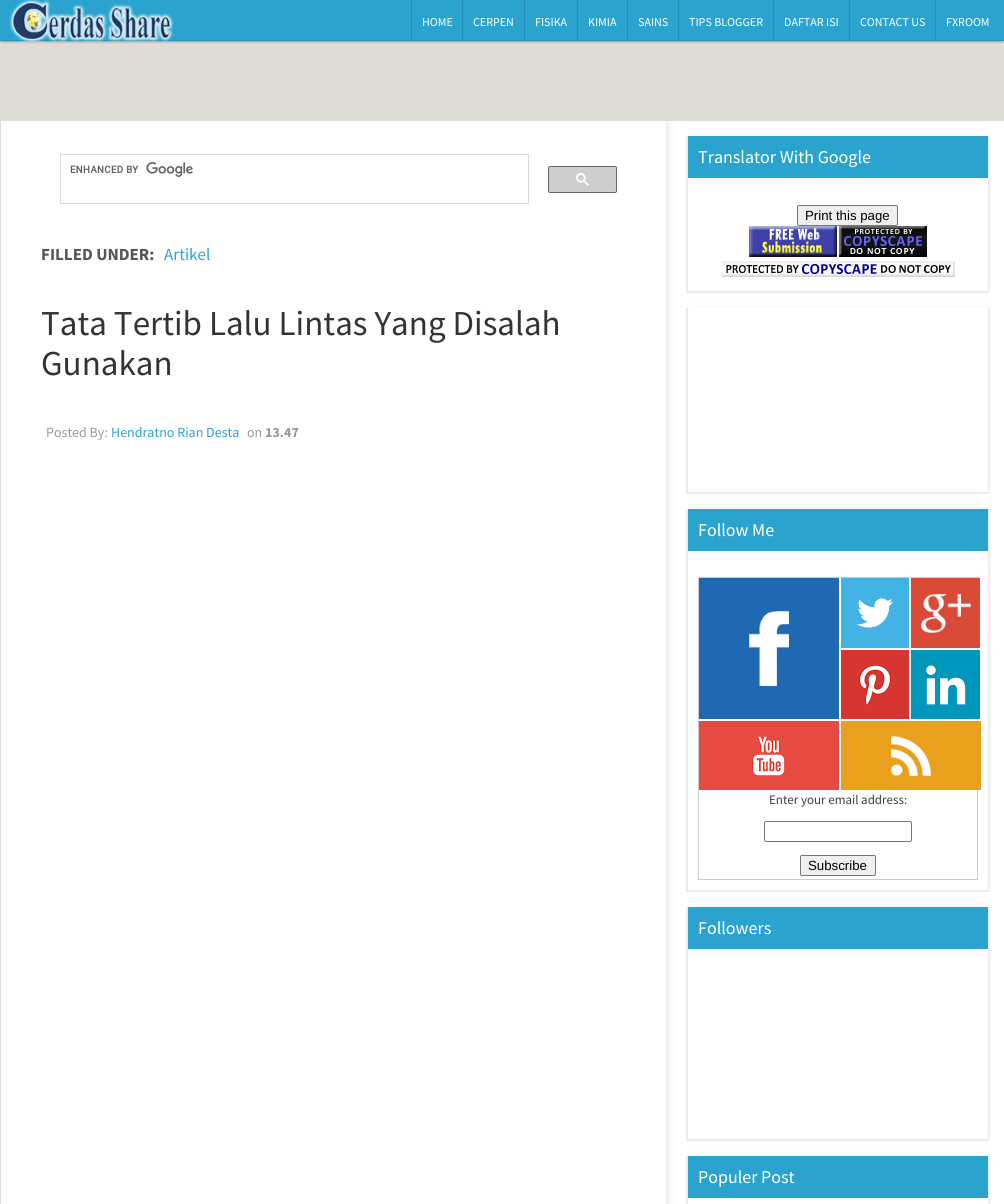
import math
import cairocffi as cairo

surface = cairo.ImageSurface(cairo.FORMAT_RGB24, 1004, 1204)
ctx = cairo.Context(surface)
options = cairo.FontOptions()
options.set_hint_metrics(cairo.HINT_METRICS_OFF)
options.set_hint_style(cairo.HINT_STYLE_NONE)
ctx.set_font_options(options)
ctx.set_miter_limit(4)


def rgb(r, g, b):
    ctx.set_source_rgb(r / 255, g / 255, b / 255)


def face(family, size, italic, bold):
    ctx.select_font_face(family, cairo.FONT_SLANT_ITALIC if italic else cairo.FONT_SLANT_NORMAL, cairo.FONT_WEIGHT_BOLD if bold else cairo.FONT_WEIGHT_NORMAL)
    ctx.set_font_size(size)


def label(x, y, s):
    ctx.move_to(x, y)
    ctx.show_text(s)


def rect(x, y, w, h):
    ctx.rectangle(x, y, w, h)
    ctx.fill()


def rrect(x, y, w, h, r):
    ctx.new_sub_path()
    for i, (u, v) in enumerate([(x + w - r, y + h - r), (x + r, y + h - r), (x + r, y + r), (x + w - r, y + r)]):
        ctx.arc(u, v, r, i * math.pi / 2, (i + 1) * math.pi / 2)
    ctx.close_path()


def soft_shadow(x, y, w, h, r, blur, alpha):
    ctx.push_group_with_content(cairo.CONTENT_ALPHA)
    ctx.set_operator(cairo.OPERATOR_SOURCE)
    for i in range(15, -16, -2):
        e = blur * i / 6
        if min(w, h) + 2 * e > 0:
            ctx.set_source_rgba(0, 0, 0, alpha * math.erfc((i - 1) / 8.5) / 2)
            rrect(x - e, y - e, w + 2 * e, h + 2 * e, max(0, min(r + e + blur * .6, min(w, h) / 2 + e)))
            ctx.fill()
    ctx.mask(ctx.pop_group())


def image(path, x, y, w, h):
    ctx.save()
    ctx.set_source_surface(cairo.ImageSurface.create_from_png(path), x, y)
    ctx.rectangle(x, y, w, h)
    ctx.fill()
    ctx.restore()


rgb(223, 220, 212)
ctx.paint()
rgb(0, 0, 0)
soft_shadow(1, 3, 1002, 39, 0, 1, 0.3)
rgb(42, 164, 207)
rect(0, 0, 1004, 40)
rgb(38, 147, 186)
rect(0, 40, 1004, 1)
image('image0.png', 9, 0, 165, 43)
rgb(36, 140, 177)
rect(411, 0, 1, 41)
face('Source Sans Pro', 12, 0, 0)
rgb(255, 255, 255)
label(422, 26, 'HOME')
rgb(36, 140, 177)
rect(462, 0, 1, 41)
rgb(255, 255, 255)
label(473, 26, 'CERPEN')
rgb(36, 140, 177)
rect(524, 0, 1, 41)
rgb(255, 255, 255)
label(535, 26, 'FISIKA')
rgb(36, 140, 177)
rect(577, 0, 1, 41)
rgb(255, 255, 255)
label(588, 26, 'KIMIA')
rgb(36, 140, 177)
rect(627, 0, 1, 41)
rgb(255, 255, 255)
label(638, 26, 'SAINS')
rgb(36, 140, 177)
rect(678, 0, 1, 41)
rgb(255, 255, 255)
label(689, 26, 'TIPS BLOGGER')
rgb(36, 140, 177)
rect(773, 0, 1, 41)
rgb(255, 255, 255)
label(784, 26, 'DAFTAR ISI')
rgb(36, 140, 177)
rect(849, 0, 1, 41)
rgb(255, 255, 255)
label(860, 26, 'CONTACT US')
rgb(36, 140, 177)
rect(935, 0, 1, 41)
rgb(255, 255, 255)
label(946, 26, 'FXROOM')
ctx.rectangle(0.5, 120.5, 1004, 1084)
rgb(221, 221, 221)
ctx.set_line_width(1)
ctx.stroke()
rgb(255, 255, 255)
rect(1, 121, 1003, 1083)
ctx.save()
ctx.set_fill_rule(cairo.FILL_RULE_EVEN_ODD)
ctx.new_path()
ctx.move_to(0, 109)
ctx.line_to(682, 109)
ctx.line_to(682, 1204)
ctx.line_to(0, 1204)
ctx.close_path()
ctx.move_to(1, 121)
ctx.line_to(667, 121)
ctx.line_to(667, 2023)
ctx.line_to(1, 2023)
ctx.close_path()
ctx.clip()
rgb(221, 221, 221)
soft_shadow(12, 125, 654, 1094, 0, 5, 1)
ctx.restore()
rgb(234, 234, 234)
rect(666, 121, 1, 1083)
ctx.rectangle(60.5, 154.5, 468, 49)
rgb(217, 217, 217)
ctx.stroke()
image('image1.png', 70, 162, 123, 15)
rgb(206, 206, 206)
rrect(548.5, 166.5, 68, 26, 1.5)
ctx.fill_preserve()
rgb(102, 102, 102)
ctx.stroke()
image('image2.png', 576, 173, 13, 13)
face('Source Sans Pro', 17, 0, 1)
rgb(85, 85, 85)
label(41, 260, 'FILLED UNDER:')
face('Source Sans Pro', 17, 0, 0)
rgb(42, 164, 207)
label(164, 260, 'Artikel')
face('Source Sans Pro', 35, 0, 0)
rgb(51, 51, 51)
label(41, 335, 'Tata Tertib Lalu Lintas Yang Disalah')
label(41, 375, 'Gunakan')
face('Source Sans Pro', 14, 0, 0)
rgb(153, 153, 153)
label(46, 437, 'Posted By:')
rgb(42, 164, 207)
label(111, 437, 'Hendratno Rian Desta')
rgb(153, 153, 153)
label(247, 437, 'on')
face('Source Sans Pro', 14, 0, 1)
label(265, 437, '13.47')
ctx.save()
ctx.rectangle(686, 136, 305, 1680)
ctx.clip()
ctx.set_fill_rule(cairo.FILL_RULE_EVEN_ODD)
ctx.new_path()
ctx.move_to(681, 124)
ctx.line_to(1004, 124)
ctx.line_to(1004, 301)
ctx.line_to(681, 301)
ctx.close_path()
ctx.move_to(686, 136)
ctx.line_to(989, 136)
ctx.line_to(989, 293)
ctx.line_to(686, 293)
ctx.close_path()
ctx.clip()
rgb(221, 221, 221)
soft_shadow(697, 140, 291, 145, 0, 5, 1)
ctx.restore()
rgb(234, 234, 234)
rect(988, 136, 1, 157)
rect(686, 291, 303, 2)
rect(686, 136, 2, 157)
rgb(42, 164, 207)
rect(688, 136, 300, 42)
face('Source Sans Pro', 18, 0, 0)
rgb(255, 255, 255)
label(698, 163, 'Translator With Google')
rgb(239, 239, 239)
rrect(797.5, 205.5, 100, 20, 1.5)
ctx.fill_preserve()
rgb(118, 118, 118)
ctx.stroke()
face('Liberation Sans', 13.25, 0, 0)
rgb(0, 0, 0)
label(805, 220, 'Print this page')
image('image3.png', 749, 226, 88, 31)
image('image4.png', 839, 226, 88, 31)
image('image5.png', 721, 261, 234, 16)
ctx.save()
ctx.rectangle(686, 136, 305, 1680)
ctx.clip()
ctx.set_fill_rule(cairo.FILL_RULE_EVEN_ODD)
ctx.new_path()
ctx.move_to(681, 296)
ctx.line_to(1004, 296)
ctx.line_to(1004, 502)
ctx.line_to(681, 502)
ctx.close_path()
ctx.move_to(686, 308)
ctx.line_to(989, 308)
ctx.line_to(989, 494)
ctx.line_to(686, 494)
ctx.close_path()
ctx.clip()
rgb(221, 221, 221)
soft_shadow(697, 312, 291, 174, 0, 5, 1)
ctx.restore()
rgb(234, 234, 234)
rect(988, 308, 1, 186)
rect(686, 492, 303, 2)
rect(686, 308, 2, 186)
ctx.save()
ctx.rectangle(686, 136, 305, 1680)
ctx.clip()
ctx.set_fill_rule(cairo.FILL_RULE_EVEN_ODD)
ctx.new_path()
ctx.move_to(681, 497)
ctx.line_to(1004, 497)
ctx.line_to(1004, 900)
ctx.line_to(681, 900)
ctx.close_path()
ctx.move_to(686, 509)
ctx.line_to(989, 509)
ctx.line_to(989, 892)
ctx.line_to(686, 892)
ctx.close_path()
ctx.clip()
rgb(221, 221, 221)
soft_shadow(697, 513, 291, 371, 0, 5, 1)
ctx.restore()
rect(988, 509, 1, 383)
rect(686, 890, 303, 2)
rect(686, 509, 2, 383)
rgb(42, 164, 207)
rect(688, 509, 300, 42)
face('Source Sans Pro', 18, 0, 0)
rgb(255, 255, 255)
label(698, 536, 'Follow Me')
ctx.rectangle(698.5, 577.5, 279, 302)
rgb(204, 204, 204)
ctx.stroke()
rgb(31, 105, 179)
rect(699, 578, 140, 141)
image('image6.png', 749, 611, 40, 75)
rgb(67, 179, 229)
rect(841, 578, 68, 70)
image('image7.png', 857, 598, 36, 30)
rgb(218, 74, 56)
rect(911, 578, 69, 70)
image('image8.png', 921, 594, 50, 39)
rgb(215, 53, 50)
rect(841, 650, 68, 69)
image('image9.png', 859, 665, 32, 40)
rgb(0, 151, 189)
rect(911, 650, 69, 69)
image('image10.png', 926, 665, 40, 40)
rgb(230, 74, 65)
rect(699, 721, 140, 69)
image('image11.png', 752, 736, 33, 40)
rgb(233, 160, 28)
rect(841, 721, 140, 69)
image('image12.png', 891, 736, 40, 40)
face('Source Sans Pro', 13, 0, 0)
rgb(55, 65, 66)
label(769, 804, 'Enter your email address:')
rrect(764.5, 821.5, 147, 20, 1.5)
rgb(118, 118, 118)
ctx.stroke()
rgb(239, 239, 239)
rrect(800.5, 855.5, 75, 20, 1.5)
ctx.fill_preserve()
rgb(118, 118, 118)
ctx.stroke()
face('Liberation Sans', 13.25, 0, 0)
rgb(0, 0, 0)
label(808, 870, 'Subscribe')
ctx.save()
ctx.rectangle(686, 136, 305, 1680)
ctx.clip()
ctx.set_fill_rule(cairo.FILL_RULE_EVEN_ODD)
ctx.new_path()
ctx.move_to(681, 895)
ctx.line_to(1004, 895)
ctx.line_to(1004, 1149)
ctx.line_to(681, 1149)
ctx.close_path()
ctx.move_to(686, 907)
ctx.line_to(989, 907)
ctx.line_to(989, 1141)
ctx.line_to(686, 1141)
ctx.close_path()
ctx.clip()
rgb(221, 221, 221)
soft_shadow(697, 911, 291, 222, 0, 5, 1)
ctx.restore()
rgb(234, 234, 234)
rect(988, 907, 1, 234)
rect(686, 1139, 303, 2)
rect(686, 907, 2, 234)
rgb(42, 164, 207)
rect(688, 907, 300, 42)
face('Source Sans Pro', 18, 0, 0)
rgb(255, 255, 255)
label(698, 934, 'Followers')
ctx.save()
ctx.rectangle(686, 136, 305, 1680)
ctx.clip()
ctx.set_fill_rule(cairo.FILL_RULE_EVEN_ODD)
ctx.new_path()
ctx.move_to(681, 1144)
ctx.line_to(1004, 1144)
ctx.line_to(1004, 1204)
ctx.line_to(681, 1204)
ctx.close_path()
ctx.move_to(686, 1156)
ctx.line_to(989, 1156)
ctx.line_to(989, 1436)
ctx.line_to(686, 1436)
ctx.close_path()
ctx.clip()
rgb(221, 221, 221)
soft_shadow(697, 1160, 291, 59, 0, 5, 1)
ctx.restore()
rgb(234, 234, 234)
rect(988, 1156, 1, 48)
rect(686, 1156, 2, 48)
rgb(42, 164, 207)
rect(688, 1156, 300, 42)
rgb(255, 255, 255)
label(698, 1183, 'Populer Post')
surface.write_to_png('render.png')
